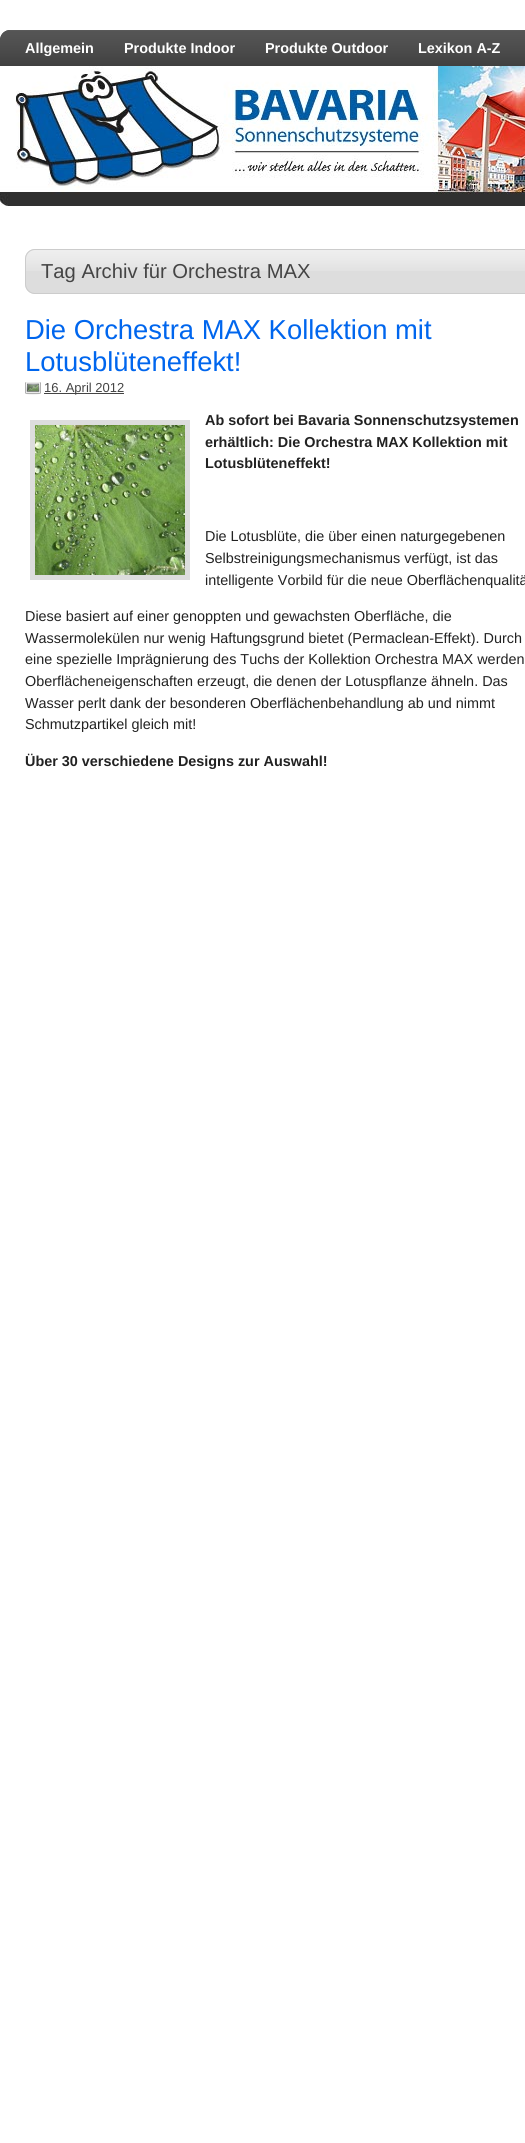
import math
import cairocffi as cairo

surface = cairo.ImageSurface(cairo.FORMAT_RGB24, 525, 2143)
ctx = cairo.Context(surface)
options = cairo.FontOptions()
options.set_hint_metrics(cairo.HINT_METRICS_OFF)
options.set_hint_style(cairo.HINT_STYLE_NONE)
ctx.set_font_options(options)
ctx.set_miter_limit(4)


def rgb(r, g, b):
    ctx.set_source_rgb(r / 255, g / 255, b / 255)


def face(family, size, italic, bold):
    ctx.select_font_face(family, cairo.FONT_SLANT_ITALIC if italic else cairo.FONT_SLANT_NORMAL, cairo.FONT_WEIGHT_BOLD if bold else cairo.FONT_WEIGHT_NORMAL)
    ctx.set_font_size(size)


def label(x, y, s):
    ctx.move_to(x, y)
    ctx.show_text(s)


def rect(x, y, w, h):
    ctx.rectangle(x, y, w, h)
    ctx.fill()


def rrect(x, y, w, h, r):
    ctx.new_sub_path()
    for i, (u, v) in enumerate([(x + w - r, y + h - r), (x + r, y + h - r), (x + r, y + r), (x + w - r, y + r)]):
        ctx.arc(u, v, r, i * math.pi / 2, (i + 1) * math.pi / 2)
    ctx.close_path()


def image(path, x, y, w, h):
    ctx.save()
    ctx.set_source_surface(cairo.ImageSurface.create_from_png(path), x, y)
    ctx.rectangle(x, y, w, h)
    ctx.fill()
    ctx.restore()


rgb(255, 255, 255)
ctx.paint()
rgb(51, 51, 51)
ctx.new_path()
ctx.move_to(10, 30)
ctx.line_to(525, 30)
ctx.curve_to(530.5, 30, 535, 34.5, 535, 40)
ctx.line_to(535, 66)
ctx.line_to(0, 66)
ctx.line_to(0, 40)
ctx.curve_to(0, 34.5, 4.5, 30, 10, 30)
ctx.close_path()
ctx.fill()
image('image0.png', 0, 30, 525, 36)
face('Liberation Sans', 14.4, 0, 1)
rgb(255, 255, 255)
label(25, 53, 'Allgemein')
label(124, 53, 'Produkte Indoor')
label(265, 53, 'Produkte Outdoor')
label(418, 53, 'Lexikon A-Z')
image('image1.png', 0, 66, 525, 140)
rgb(221, 221, 221)
rrect(25, 249, 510, 45, 10)
ctx.fill()
image('image2.png', 25, 250, 500, 21)
rrect(25.5, 249.5, 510, 44, 9.5)
rgb(204, 204, 204)
ctx.set_line_width(1)
ctx.stroke()
face('Liberation Sans', 20.2, 0, 0)
rgb(68, 68, 68)
label(41, 278, 'Tag Archiv für Orchestra MAX')
face('Liberation Sans', 27.4, 0, 0)
rgb(0, 102, 238)
label(25, 339, 'Die Orchestra MAX Kollektion mit')
label(25, 371, 'Lotusblüteneffekt!')
image('image3.png', 25, 382, 16, 13)
rgb(68, 68, 68)
rect(44, 393, 80, 1)
face('Liberation Sans', 13, 0, 0)
label(44, 392, '16. April 2012')
ctx.rectangle(32.5, 422.5, 155, 155)
rgb(221, 221, 221)
ctx.set_line_width(5)
ctx.stroke()
image('image4.png', 35, 425, 150, 150)
face('Liberation Sans', 14.4, 0, 1)
rgb(34, 34, 34)
label(205, 425, 'Ab sofort bei Bavaria Sonnenschutzsystemen')
label(205, 447, 'erhältlich: Die Orchestra MAX Kollektion mit')
label(205, 468, 'Lotusblüteneffekt!')
face('Liberation Sans', 14.4, 0, 0)
label(205, 541, 'Die Lotusblüte, die über einen naturgegebenen')
label(205, 563, 'Selbstreinigungsmechanismus verfügt, ist das')
label(205, 585, 'intelligente Vorbild für die neue Oberflächenqualitä')
label(25, 621, 'Diese basiert auf einer genoppten und gewachsten Oberfläche, die')
label(25, 643, 'Wassermolekülen nur wenig Haftungsgrund bietet (Permaclean-Effekt). Durch')
label(25, 664, 'eine spezielle Imprägnierung des Tuchs der Kollektion Orchestra MAX werden')
label(25, 686, 'Oberflächeneigenschaften erzeugt, die denen der Lotuspflanze ähneln. Das')
label(25, 708, 'Wasser perlt dank der besonderen Oberflächenbehandlung ab und nimmt')
label(25, 729, 'Schmutzpartikel gleich mit!')
face('Liberation Sans', 14.4, 0, 1)
label(25, 766, 'Über 30 verschiedene Designs zur Auswahl!')
surface.write_to_png('render.png')
